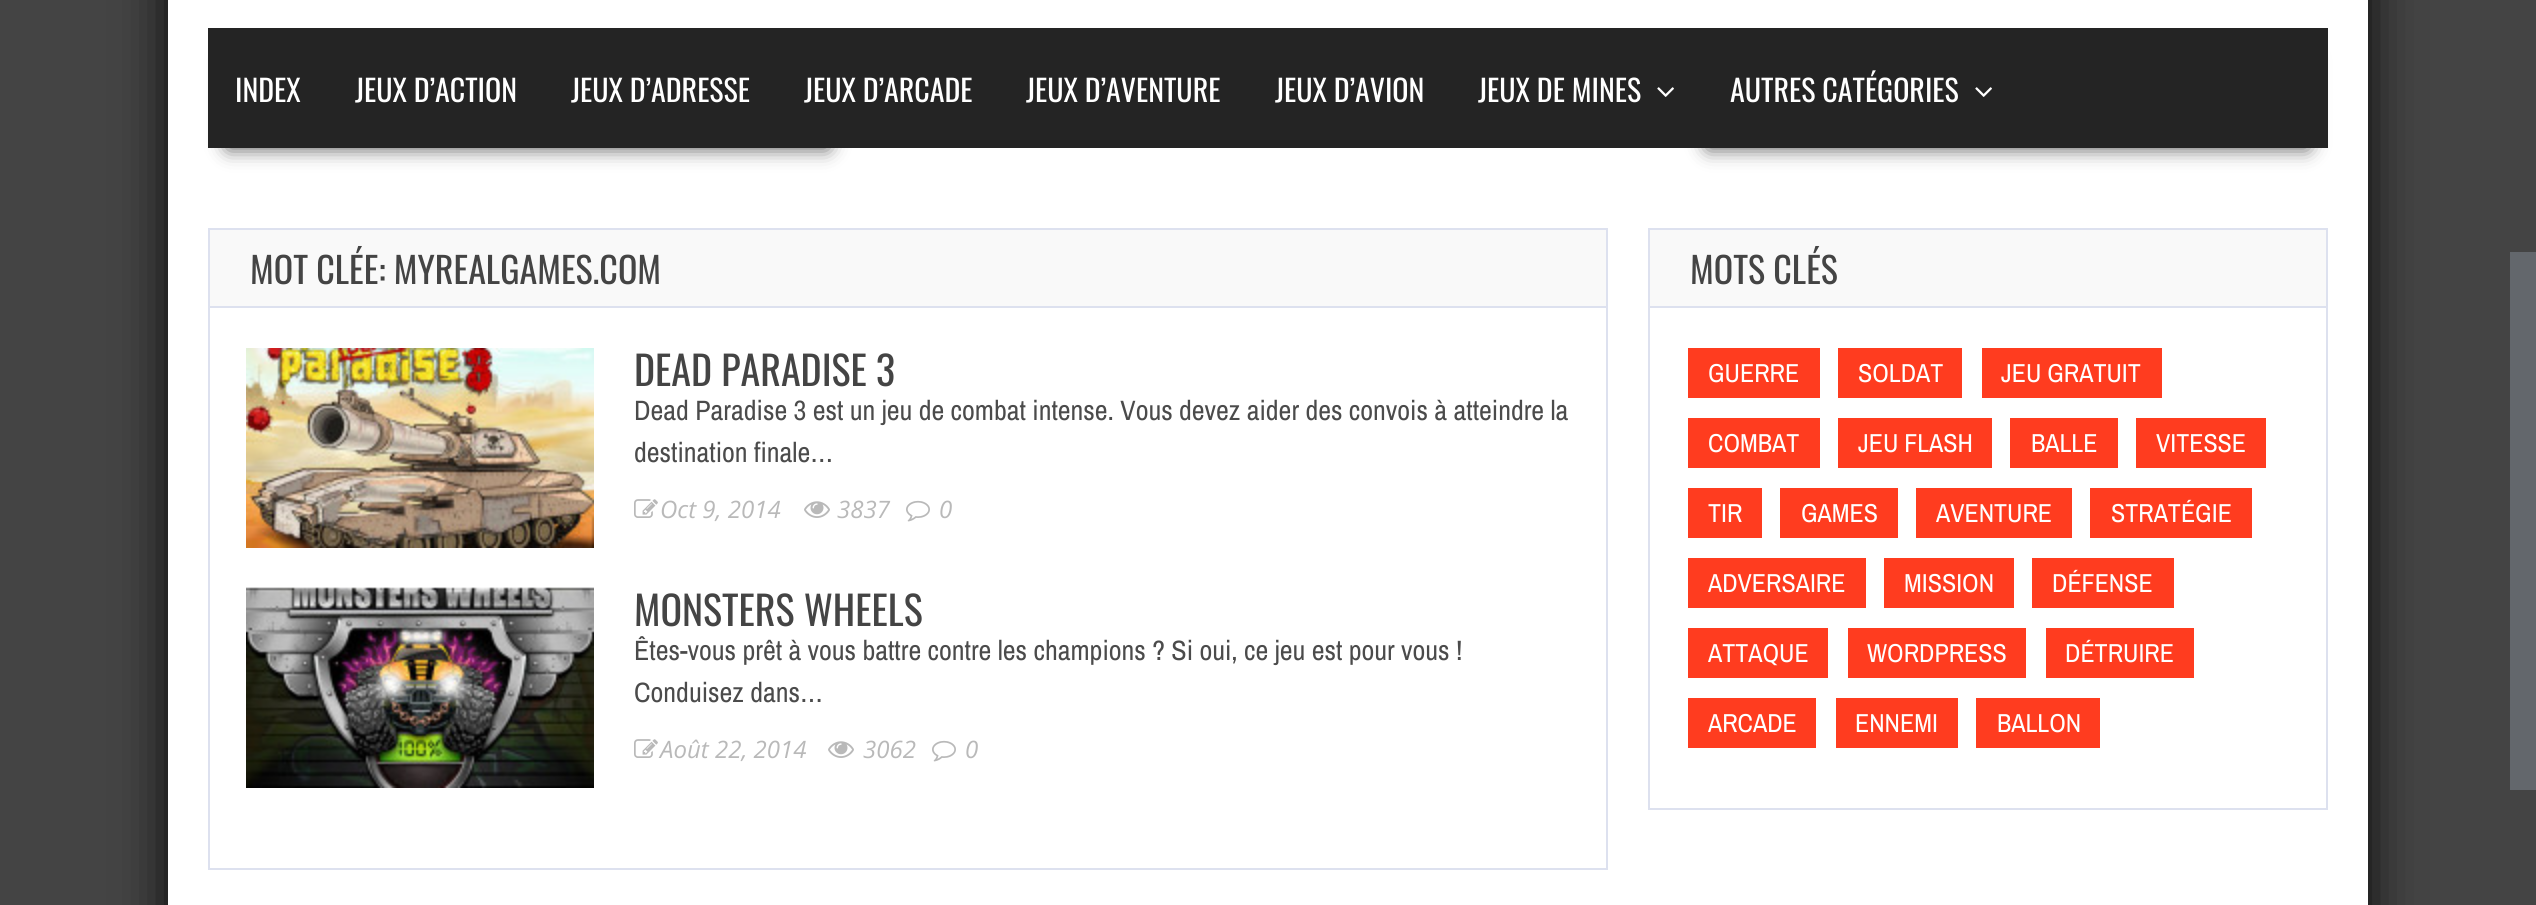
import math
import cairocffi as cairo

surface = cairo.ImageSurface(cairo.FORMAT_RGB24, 2536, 905)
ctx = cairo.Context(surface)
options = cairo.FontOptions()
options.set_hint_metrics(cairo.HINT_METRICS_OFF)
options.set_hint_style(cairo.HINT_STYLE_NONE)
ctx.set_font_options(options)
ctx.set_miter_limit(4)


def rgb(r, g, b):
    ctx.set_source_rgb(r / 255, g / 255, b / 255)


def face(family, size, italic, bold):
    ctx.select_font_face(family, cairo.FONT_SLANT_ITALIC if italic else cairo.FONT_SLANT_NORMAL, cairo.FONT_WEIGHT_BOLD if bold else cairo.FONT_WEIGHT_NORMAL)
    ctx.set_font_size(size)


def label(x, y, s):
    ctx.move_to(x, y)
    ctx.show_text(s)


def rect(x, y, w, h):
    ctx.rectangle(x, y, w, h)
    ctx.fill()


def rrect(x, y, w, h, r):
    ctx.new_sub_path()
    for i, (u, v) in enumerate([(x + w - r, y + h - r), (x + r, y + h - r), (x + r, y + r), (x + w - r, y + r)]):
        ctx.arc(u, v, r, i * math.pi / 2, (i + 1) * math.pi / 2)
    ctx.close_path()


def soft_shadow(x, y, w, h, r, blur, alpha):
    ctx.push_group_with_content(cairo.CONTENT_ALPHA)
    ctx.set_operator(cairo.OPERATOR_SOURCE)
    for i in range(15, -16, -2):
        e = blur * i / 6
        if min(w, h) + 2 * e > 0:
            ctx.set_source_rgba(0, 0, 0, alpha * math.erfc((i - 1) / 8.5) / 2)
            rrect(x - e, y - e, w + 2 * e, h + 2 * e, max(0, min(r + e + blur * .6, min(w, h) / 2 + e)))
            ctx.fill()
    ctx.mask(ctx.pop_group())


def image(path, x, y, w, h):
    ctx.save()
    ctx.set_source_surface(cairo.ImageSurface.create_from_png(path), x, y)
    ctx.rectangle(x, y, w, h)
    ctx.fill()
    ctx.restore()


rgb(68, 68, 68)
ctx.paint()
rgb(0, 0, 0)
soft_shadow(168, -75, 2200, 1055, 0, 25, 0.9)
rgb(255, 255, 255)
rect(168, 0, 2200, 905)
rgb(0, 0, 0)
soft_shadow(228, 58, 600, 90, 0, 10, 0.7)
soft_shadow(1708, 58, 600, 90, 0, 10, 0.7)
rgb(36, 36, 36)
rect(208, 28, 2120, 120)
face('Oswald', 30, 0, 0)
rgb(255, 255, 255)
label(235, 102, 'INDEX')
label(355, 102, 'JEUX D’ACTION')
label(571, 102, 'JEUX D’ADRESSE')
label(804, 102, 'JEUX D’ARCADE')
label(1026, 102, 'JEUX D’AVENTURE')
label(1275, 102, 'JEUX D’AVION')
label(1478, 102, 'JEUX DE MINES')
image('image0.png', 1657, 87, 17, 10)
label(1730, 102, 'AUTRES CATÉGORIES')
image('image0.png', 1975, 87, 17, 10)
ctx.rectangle(209, 229, 1398, 640)
rgb(221, 225, 239)
ctx.stroke()
rgb(249, 249, 249)
rect(210, 230, 1396, 76)
rgb(221, 225, 239)
rect(210, 306, 1396, 2)
face('Oswald', 36, 0, 0)
rgb(68, 68, 68)
label(250, 284, 'MOT CLÉE: MYREALGAMES.COM')
image('image1.png', 246, 348, 348, 200)
face('Oswald', 40, 0, 0)
label(634, 386, 'DEAD PARADISE 3')
face('Archivo Narrow', 28, 0, 0)
rgb(75, 75, 75)
label(634, 420, 'Dead Paradise 3 est un jeu de combat intense. Vous devez aider des convois à atteindre la')
label(634, 462, 'destination finale…')
image('image2.png', 634, 499, 24, 19)
face('Open Sans', 24, 1, 0)
rgb(185, 185, 185)
label(660, 518, 'Oct 9, 2014')
image('image3.png', 804, 501, 26, 17)
label(837, 518, '3837')
image('image4.png', 906, 500, 24, 22)
label(939, 518, '0')
image('image5.png', 246, 587, 348, 201)
face('Oswald', 40, 0, 0)
rgb(68, 68, 68)
label(634, 626, 'MONSTERS WHEELS')
face('Archivo Narrow', 28, 0, 0)
rgb(75, 75, 75)
label(634, 660, 'Êtes-vous prêt à vous battre contre les champions ? Si oui, ce jeu est pour vous !')
label(634, 702, 'Conduisez dans…')
image('image2.png', 634, 739, 24, 19)
face('Open Sans', 24, 1, 0)
rgb(185, 185, 185)
label(660, 758, 'Août 22, 2014')
image('image3.png', 828, 741, 26, 17)
label(863, 758, '3062')
image('image4.png', 932, 740, 24, 22)
label(965, 758, '0')
ctx.rectangle(1649, 229, 678, 580)
rgb(221, 225, 239)
ctx.stroke()
rgb(249, 249, 249)
rect(1650, 230, 676, 76)
rgb(221, 225, 239)
rect(1650, 306, 676, 2)
face('Oswald', 36, 0, 0)
rgb(68, 68, 68)
label(1690, 284, 'MOTS CLÉS')
rgb(255, 60, 31)
rect(1688, 348, 132, 50)
face('Archivo Narrow', 26, 0, 0)
rgb(255, 255, 255)
label(1708, 382, 'GUERRE')
rgb(255, 60, 31)
rect(1838, 348, 124, 50)
rgb(255, 255, 255)
label(1858, 382, 'SOLDAT')
rgb(255, 60, 31)
rect(1982, 348, 180, 50)
rgb(255, 255, 255)
label(2001, 382, 'JEU GRATUIT')
rgb(255, 60, 31)
rect(1688, 418, 132, 50)
rgb(255, 255, 255)
label(1708, 452, 'COMBAT')
rgb(255, 60, 31)
rect(1838, 418, 154, 50)
rgb(255, 255, 255)
label(1858, 452, 'JEU FLASH')
rgb(255, 60, 31)
rect(2010, 418, 108, 50)
rgb(255, 255, 255)
label(2031, 452, 'BALLE')
rgb(255, 60, 31)
rect(2136, 418, 130, 50)
rgb(255, 255, 255)
label(2156, 452, 'VITESSE')
rgb(255, 60, 31)
rect(1688, 488, 74, 50)
rgb(255, 255, 255)
label(1708, 522, 'TIR')
rgb(255, 60, 31)
rect(1780, 488, 118, 50)
rgb(255, 255, 255)
label(1801, 522, 'GAMES')
rgb(255, 60, 31)
rect(1916, 488, 156, 50)
rgb(255, 255, 255)
label(1936, 522, 'AVENTURE')
rgb(255, 60, 31)
rect(2090, 488, 162, 50)
rgb(255, 255, 255)
label(2111, 522, 'STRATÉGIE')
rgb(255, 60, 31)
rect(1688, 558, 178, 50)
rgb(255, 255, 255)
label(1708, 592, 'ADVERSAIRE')
rgb(255, 60, 31)
rect(1884, 558, 130, 50)
rgb(255, 255, 255)
label(1904, 592, 'MISSION')
rgb(255, 60, 31)
rect(2032, 558, 142, 50)
rgb(255, 255, 255)
label(2052, 592, 'DÉFENSE')
rgb(255, 60, 31)
rect(1688, 628, 140, 50)
rgb(255, 255, 255)
label(1708, 662, 'ATTAQUE')
rgb(255, 60, 31)
rect(1848, 628, 178, 50)
rgb(255, 255, 255)
label(1867, 662, 'WORDPRESS')
rgb(255, 60, 31)
rect(2046, 628, 148, 50)
rgb(255, 255, 255)
label(2065, 662, 'DÉTRUIRE')
rgb(255, 60, 31)
rect(1688, 698, 128, 50)
rgb(255, 255, 255)
label(1708, 732, 'ARCADE')
rgb(255, 60, 31)
rect(1836, 698, 122, 50)
rgb(255, 255, 255)
label(1855, 732, 'ENNEMI')
rgb(255, 60, 31)
rect(1976, 698, 124, 50)
rgb(255, 255, 255)
label(1997, 732, 'BALLON')
rgb(99, 103, 108)
rect(2510, 252, 26, 538)
surface.write_to_png('render.png')
